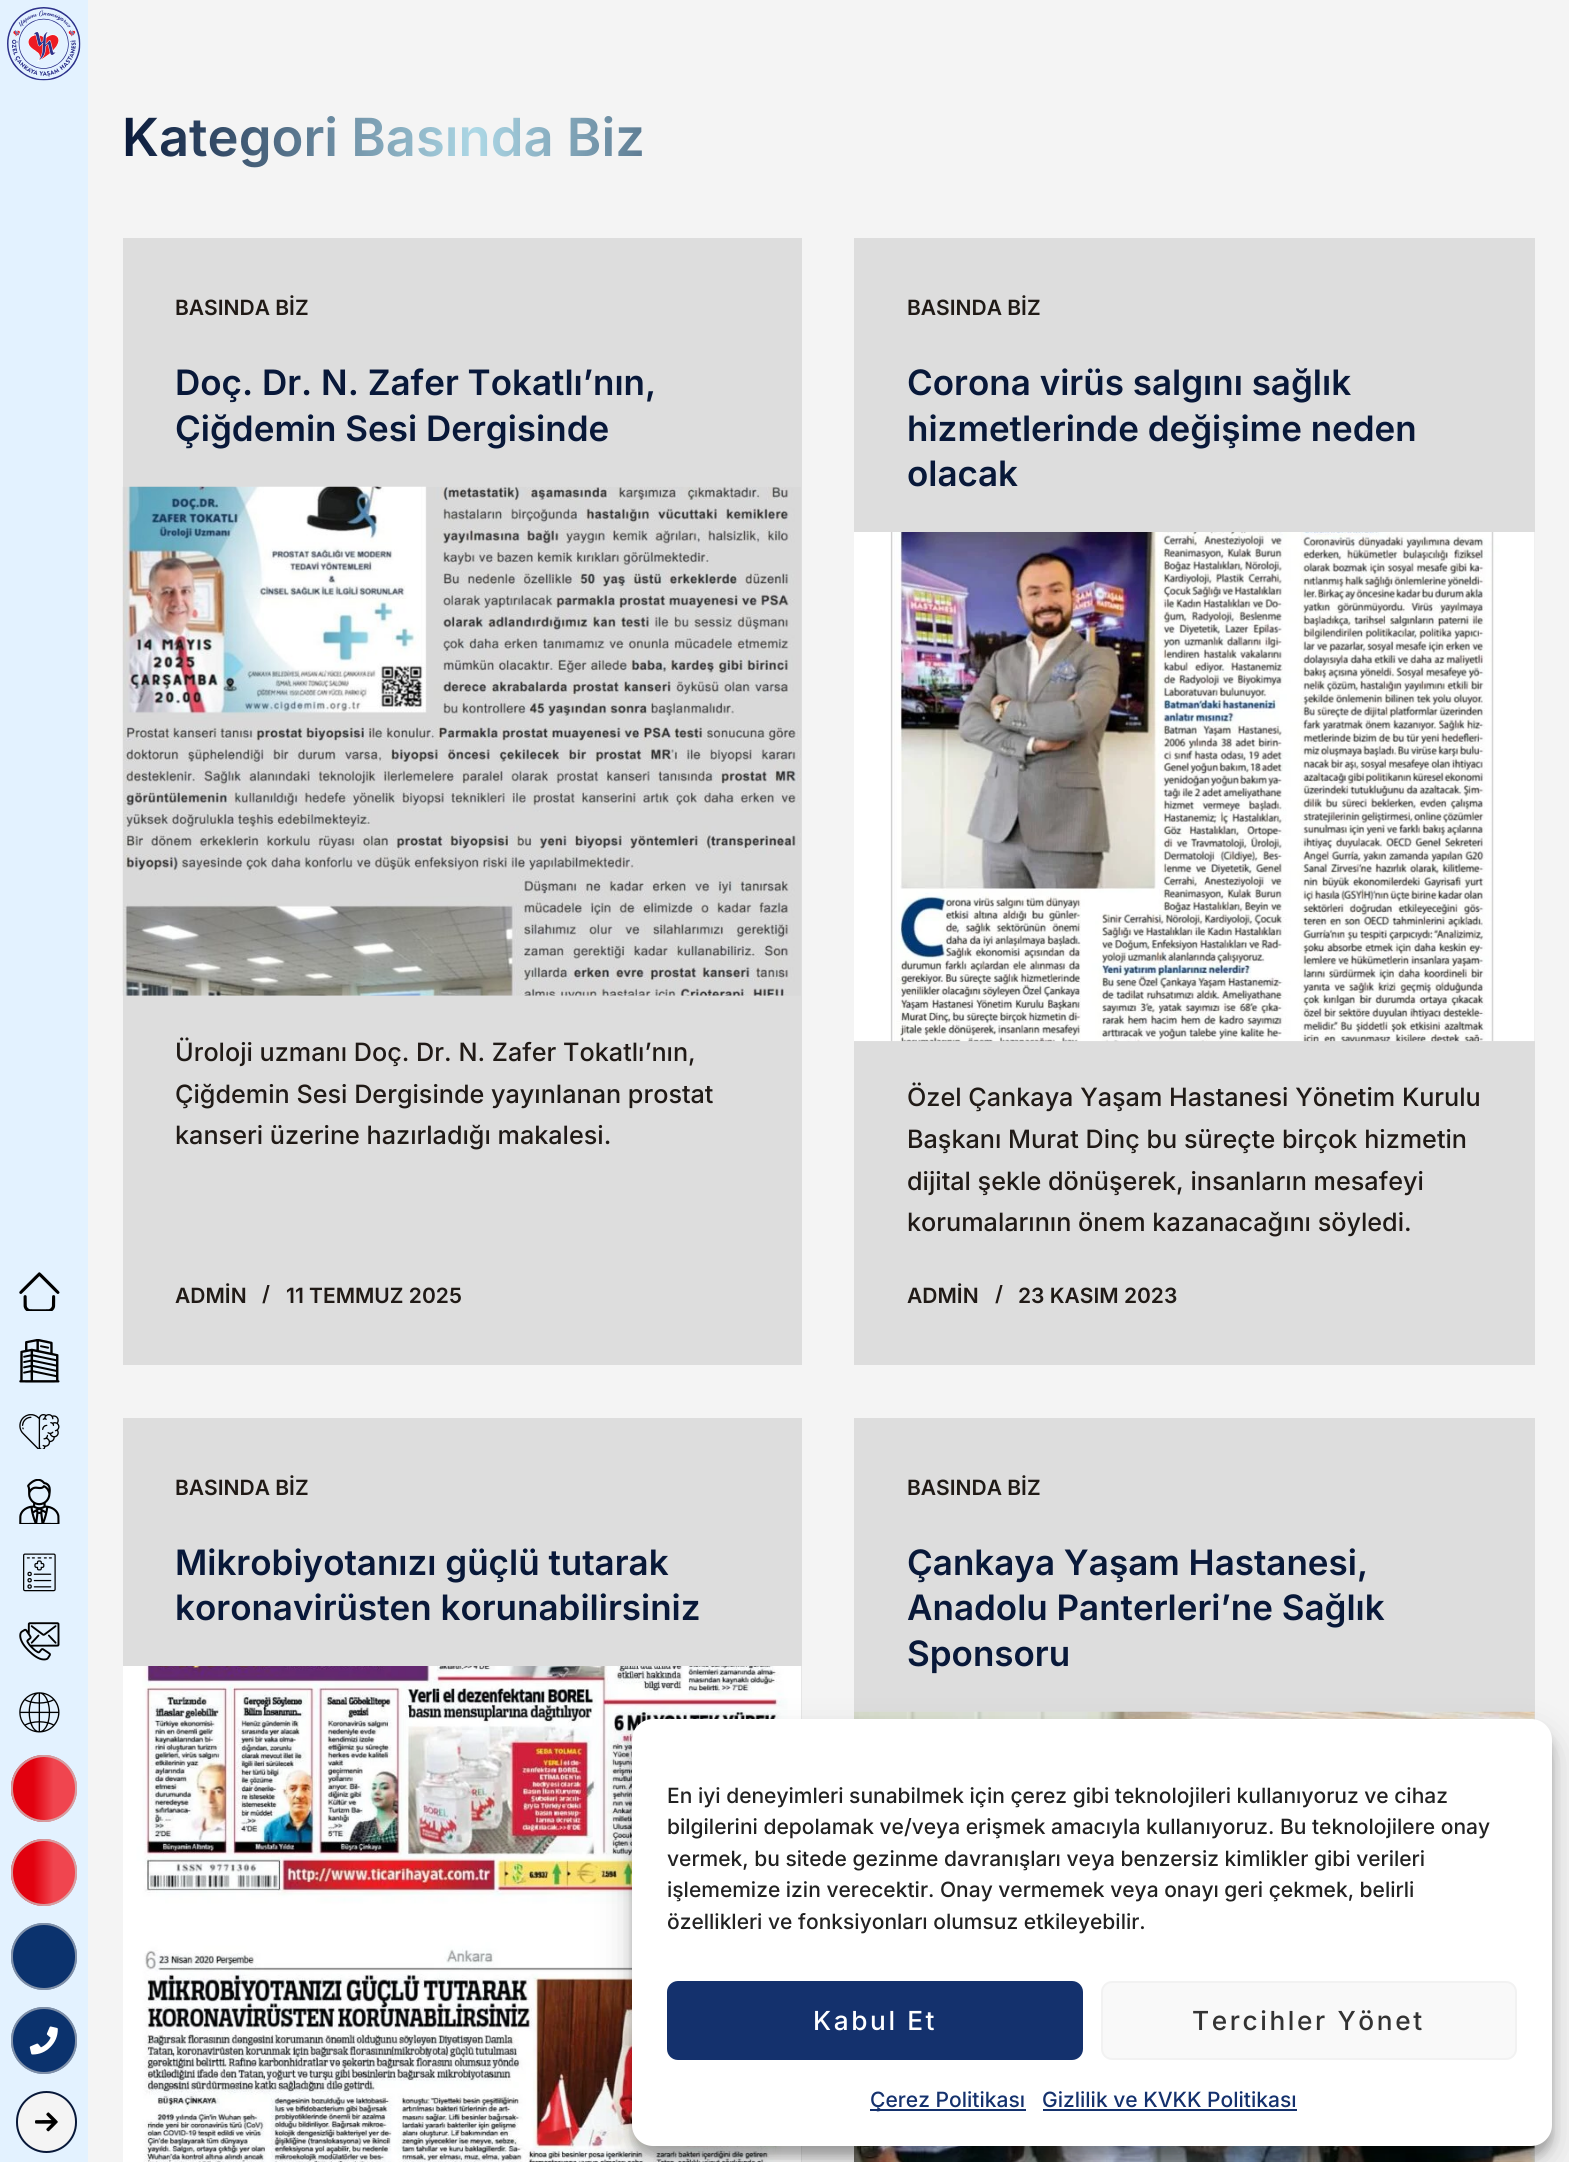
import math
import cairocffi as cairo

surface = cairo.ImageSurface(cairo.FORMAT_RGB24, 1569, 2162)
ctx = cairo.Context(surface)
options = cairo.FontOptions()
options.set_hint_metrics(cairo.HINT_METRICS_OFF)
options.set_hint_style(cairo.HINT_STYLE_NONE)
ctx.set_font_options(options)
ctx.set_miter_limit(4)


def rgb(r, g, b):
    ctx.set_source_rgb(r / 255, g / 255, b / 255)


def face(family, size, italic, bold):
    ctx.select_font_face(family, cairo.FONT_SLANT_ITALIC if italic else cairo.FONT_SLANT_NORMAL, cairo.FONT_WEIGHT_BOLD if bold else cairo.FONT_WEIGHT_NORMAL)
    ctx.set_font_size(size)


def label(x, y, s):
    ctx.move_to(x, y)
    ctx.show_text(s)


def tracked(x, y, s, letter, word):
    ctx.move_to(x, y)
    for ch in s:
        ctx.show_text(ch)
        ctx.rel_move_to(letter + word * (ch == ' '), 0)


def rect(x, y, w, h):
    ctx.rectangle(x, y, w, h)
    ctx.fill()


def rrect(x, y, w, h, r):
    ctx.new_sub_path()
    for i, (u, v) in enumerate([(x + w - r, y + h - r), (x + r, y + h - r), (x + r, y + r), (x + w - r, y + r)]):
        ctx.arc(u, v, r, i * math.pi / 2, (i + 1) * math.pi / 2)
    ctx.close_path()


def soft_shadow(x, y, w, h, r, blur, alpha):
    ctx.push_group_with_content(cairo.CONTENT_ALPHA)
    ctx.set_operator(cairo.OPERATOR_SOURCE)
    for i in range(15, -16, -2):
        e = blur * i / 6
        if min(w, h) + 2 * e > 0:
            ctx.set_source_rgba(0, 0, 0, alpha * math.erfc((i - 1) / 8.5) / 2)
            rrect(x - e, y - e, w + 2 * e, h + 2 * e, max(0, min(r + e + blur * .6, min(w, h) / 2 + e)))
            ctx.fill()
    ctx.mask(ctx.pop_group())


def image(path, x, y, w, h):
    ctx.save()
    ctx.set_source_surface(cairo.ImageSurface.create_from_png(path), x, y)
    ctx.rectangle(x, y, w, h)
    ctx.fill()
    ctx.restore()


rgb(244, 244, 244)
ctx.paint()
rgb(227, 242, 255)
rect(0, 0, 88, 2162)
image('image0.png', 7, 7, 74, 74)
image('image1.png', 19, 1272, 41, 39)
image('image2.png', 19, 1339, 41, 44)
image('image3.png', 19, 1414, 41, 35)
image('image4.png', 19, 1479, 41, 45)
image('image5.png', 23, 1553, 33, 39)
image('image6.png', 19, 1622, 41, 39)
image('image7.png', 19, 1692, 41, 41)
ctx.save()
rrect(11, 1755, 66, 67, 33)
ctx.clip()
gradient = cairo.LinearGradient(-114, 1789, 12, 1789)
gradient.add_color_stop_rgba(0, 0.89, 0.004, 0.055, 1)
gradient.add_color_stop_rgba(0.17, 0.89, 0.004, 0.055, 1)
gradient.add_color_stop_rgba(0.33, 1, 0.545, 0.569, 1)
gradient.add_color_stop_rgba(0.67, 1, 0.545, 0.569, 1)
gradient.add_color_stop_rgba(0.83, 0.89, 0.004, 0.055, 1)
gradient.add_color_stop_rgba(1, 0.89, 0.004, 0.055, 1)
ctx.set_source(gradient)
rect(11, 1780, 1, 17)
gradient = cairo.LinearGradient(12, 1789, 138, 1789)
gradient.add_color_stop_rgba(0, 0.89, 0.004, 0.055, 1)
gradient.add_color_stop_rgba(0.17, 0.89, 0.004, 0.055, 1)
gradient.add_color_stop_rgba(0.33, 1, 0.545, 0.569, 1)
gradient.add_color_stop_rgba(0.67, 1, 0.545, 0.569, 1)
gradient.add_color_stop_rgba(0.83, 0.89, 0.004, 0.055, 1)
gradient.add_color_stop_rgba(1, 0.89, 0.004, 0.055, 1)
ctx.set_source(gradient)
ctx.new_path()
ctx.move_to(12, 1755)
ctx.line_to(44, 1755)
ctx.curve_to(62, 1755, 77, 1770, 77, 1788)
ctx.line_to(77, 1789)
ctx.curve_to(77, 1807, 62, 1822, 44, 1822)
ctx.line_to(12, 1822)
ctx.close_path()
ctx.fill()
ctx.restore()
rrect(12, 1756, 64, 65, 32)
ctx.set_source_rgba(0.812, 0.812, 0.812, 0.6)
ctx.stroke()
ctx.set_source_rgba(0.89, 0.004, 0.055, 0.5)
rrect(11, 1755, 66, 67, 33)
ctx.fill()
rrect(12, 1756, 64, 65, 32)
ctx.set_source_rgba(0.812, 0.812, 0.812, 0.6)
ctx.stroke()
ctx.save()
rrect(11, 1839, 66, 67, 33)
ctx.clip()
gradient = cairo.LinearGradient(-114, 1873, 12, 1873)
gradient.add_color_stop_rgba(0, 0.89, 0.004, 0.055, 1)
gradient.add_color_stop_rgba(0.17, 0.89, 0.004, 0.055, 1)
gradient.add_color_stop_rgba(0.33, 1, 0.545, 0.569, 1)
gradient.add_color_stop_rgba(0.67, 1, 0.545, 0.569, 1)
gradient.add_color_stop_rgba(0.83, 0.89, 0.004, 0.055, 1)
gradient.add_color_stop_rgba(1, 0.89, 0.004, 0.055, 1)
ctx.set_source(gradient)
rect(11, 1864, 1, 17)
gradient = cairo.LinearGradient(12, 1873, 138, 1873)
gradient.add_color_stop_rgba(0, 0.89, 0.004, 0.055, 1)
gradient.add_color_stop_rgba(0.17, 0.89, 0.004, 0.055, 1)
gradient.add_color_stop_rgba(0.33, 1, 0.545, 0.569, 1)
gradient.add_color_stop_rgba(0.67, 1, 0.545, 0.569, 1)
gradient.add_color_stop_rgba(0.83, 0.89, 0.004, 0.055, 1)
gradient.add_color_stop_rgba(1, 0.89, 0.004, 0.055, 1)
ctx.set_source(gradient)
ctx.new_path()
ctx.move_to(12, 1839)
ctx.line_to(44, 1839)
ctx.curve_to(62, 1839, 77, 1854, 77, 1872)
ctx.line_to(77, 1873)
ctx.curve_to(77, 1891, 62, 1906, 44, 1906)
ctx.line_to(12, 1906)
ctx.close_path()
ctx.fill()
ctx.restore()
rrect(12, 1840, 64, 65, 32)
ctx.stroke()
ctx.set_source_rgba(0.89, 0.004, 0.055, 0.5)
rrect(11, 1839, 66, 67, 33)
ctx.fill()
rrect(12, 1840, 64, 65, 32)
ctx.set_source_rgba(0.812, 0.812, 0.812, 0.6)
ctx.stroke()
rgb(11, 50, 109)
rrect(11, 1923, 66, 67, 33)
ctx.fill()
rrect(12, 1924, 64, 65, 32)
ctx.set_source_rgba(0.812, 0.812, 0.812, 0.6)
ctx.stroke()
rgb(11, 50, 109)
rrect(11, 2007, 66, 67, 33)
ctx.fill()
rrect(12, 2008, 64, 65, 32)
ctx.set_source_rgba(0.812, 0.812, 0.812, 0.6)
ctx.stroke()
image('image8.png', 29, 2026, 29, 29)
rgb(244, 244, 244)
rrect(17, 2092, 59, 60, 29.5)
ctx.fill_preserve()
rgb(8, 24, 57)
ctx.stroke()
image('image9.png', 35, 2112, 23, 20)
face('Inter SemiBold', 52.5, 0, 0)
gradient = cairo.LinearGradient(122, 137, 1535, 136)
gradient.add_color_stop_rgba(0, 0.031, 0.094, 0.224, 1)
gradient.add_color_stop_rgba(0.25, 0.678, 0.847, 0.902, 1)
gradient.add_color_stop_rgba(0.5, 0.031, 0.094, 0.224, 1)
gradient.add_color_stop_rgba(0.75, 0.678, 0.847, 0.902, 1)
gradient.add_color_stop_rgba(1, 0.031, 0.094, 0.224, 1)
ctx.set_source(gradient)
label(122, 156, 'Kategori Basında Biz')
rgb(221, 221, 221)
rect(123, 238, 679, 1127)
face('Inter SemiBold', 21, 0, 0)
rgb(32, 26, 22)
label(175, 315, 'BASINDA BİZ')
face('Inter SemiBold', 35, 0, 0)
rgb(8, 24, 57)
label(175, 395, 'Doç. Dr. N. Zafer Tokatlı’nın,')
label(175, 441, 'Çiğdemin Sesi Dergisinde')
image('image10.png', 122, 486, 679, 510)
face('Inter Medium', 25.2, 0, 0)
rgb(32, 26, 22)
label(175, 1061, 'Üroloji uzmanı Doç. Dr. N. Zafer Tokatlı’nın,')
label(175, 1103, 'Çiğdemin Sesi Dergisinde yayınlanan prostat')
label(175, 1144, 'kanseri üzerine hazırladığı makalesi.')
face('Inter SemiBold', 21, 0, 0)
label(175, 1303, 'ADMİN')
label(262, 1301, '/')
label(286, 1303, '11 TEMMUZ 2025')
rgb(221, 221, 221)
rect(854, 238, 681, 1127)
rgb(32, 26, 22)
label(907, 315, 'BASINDA BİZ')
face('Inter SemiBold', 35, 0, 0)
rgb(8, 24, 57)
label(907, 395, 'Corona virüs salgını sağlık')
label(907, 441, 'hizmetlerinde değişime neden')
label(907, 486, 'olacak')
image('image11.png', 854, 532, 681, 510)
face('Inter Medium', 25.2, 0, 0)
rgb(32, 26, 22)
label(907, 1106, 'Özel Çankaya Yaşam Hastanesi Yönetim Kurulu')
label(907, 1148, 'Başkanı Murat Dinç bu süreçte birçok hizmetin')
label(907, 1190, 'dijital şekle dönüşerek, insanların mesafeyi')
label(907, 1231, 'korumalarının önem kazanacağını söyledi.')
face('Inter SemiBold', 21, 0, 0)
label(907, 1303, 'ADMİN')
label(995, 1301, '/')
label(1018, 1303, '23 KASIM 2023')
rgb(221, 221, 221)
rect(123, 1418, 679, 744)
rgb(32, 26, 22)
label(175, 1495, 'BASINDA BİZ')
face('Inter SemiBold', 35, 0, 0)
rgb(8, 24, 57)
label(175, 1575, 'Mikrobiyotanızı güçlü tutarak')
label(175, 1620, 'koronavirüsten korunabilirsiniz')
image('image12.png', 123, 1666, 679, 496)
rgb(221, 221, 221)
rect(854, 1418, 681, 744)
face('Inter SemiBold', 21, 0, 0)
rgb(32, 26, 22)
label(907, 1495, 'BASINDA BİZ')
face('Inter SemiBold', 35, 0, 0)
rgb(8, 24, 57)
label(907, 1575, 'Çankaya Yaşam Hastanesi,')
label(907, 1620, 'Anadolu Panterleri’ne Sağlık')
label(907, 1666, 'Sponsoru')
image('image13.png', 854, 1711, 681, 451)
rgb(0, 0, 0)
soft_shadow(632, 1729, 920, 427, 21, 5, 0.23)
soft_shadow(632, 1736, 920, 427, 21, 17.5, 0.19)
rgb(255, 255, 255)
rrect(632, 1719, 920, 427, 21)
ctx.fill()
face('Inter Medium', 21, 0, 0)
rgb(34, 34, 34)
label(667, 1803, 'En iyi deneyimleri sunabilmek için çerez gibi teknolojileri kullanıyoruz ve cihaz')
label(667, 1834, 'bilgilerini depolamak ve/veya erişmek amacıyla kullanıyoruz. Bu teknolojilere onay')
label(667, 1866, 'vermek, bu sitede gezinme davranışları veya benzersiz kimlikler gibi verileri')
label(667, 1897, 'işlememize izin verecektir. Onay vermemek veya onayı geri çekmek, belirli')
label(667, 1929, 'özellikleri ve fonksiyonları olumsuz etkileyebilir.')
rgb(20, 49, 109)
rrect(668, 1982, 414, 77, 10)
ctx.fill_preserve()
ctx.stroke()
face('Inter Medium', 26.25, 0, 0)
rgb(255, 255, 255)
tracked(813, 2030, 'Kabul Et', 2.6, 0)
rgb(249, 249, 249)
rrect(1102, 1982, 414, 77, 10)
ctx.fill_preserve()
rgb(242, 242, 242)
ctx.stroke()
rgb(51, 51, 51)
tracked(1192, 2030, 'Tercihler Yönet', 2.6, 0)
rgb(20, 49, 109)
rect(870, 2109, 156, 2)
face('Inter Medium', 21, 0, 0)
label(870, 2107, 'Çerez Politikası')
label(1042, 2107, 'Gizlilik ve KVKK Politikası')
rect(1043, 2109, 254, 2)
surface.write_to_png('render.png')
